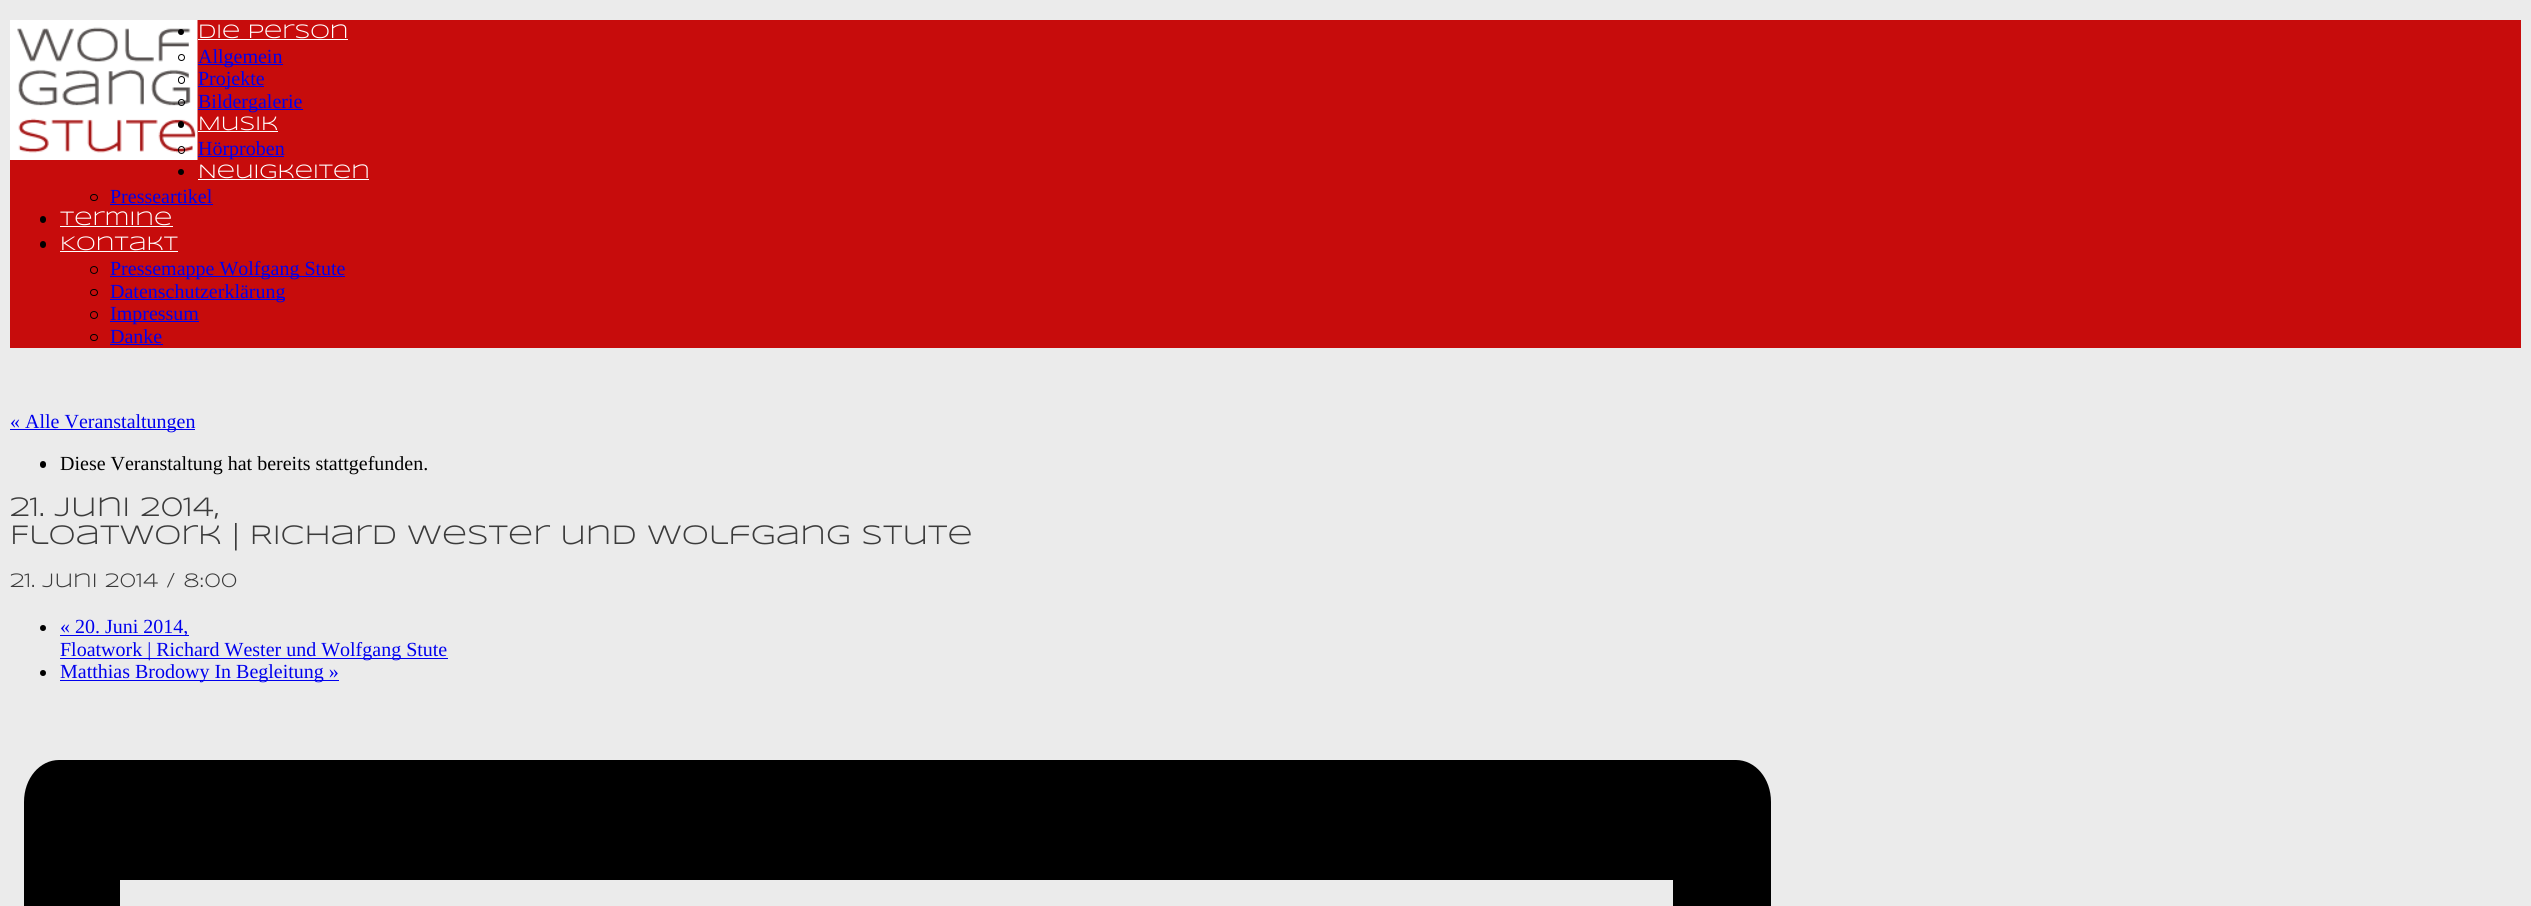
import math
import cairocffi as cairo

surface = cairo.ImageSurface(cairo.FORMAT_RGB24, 2531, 906)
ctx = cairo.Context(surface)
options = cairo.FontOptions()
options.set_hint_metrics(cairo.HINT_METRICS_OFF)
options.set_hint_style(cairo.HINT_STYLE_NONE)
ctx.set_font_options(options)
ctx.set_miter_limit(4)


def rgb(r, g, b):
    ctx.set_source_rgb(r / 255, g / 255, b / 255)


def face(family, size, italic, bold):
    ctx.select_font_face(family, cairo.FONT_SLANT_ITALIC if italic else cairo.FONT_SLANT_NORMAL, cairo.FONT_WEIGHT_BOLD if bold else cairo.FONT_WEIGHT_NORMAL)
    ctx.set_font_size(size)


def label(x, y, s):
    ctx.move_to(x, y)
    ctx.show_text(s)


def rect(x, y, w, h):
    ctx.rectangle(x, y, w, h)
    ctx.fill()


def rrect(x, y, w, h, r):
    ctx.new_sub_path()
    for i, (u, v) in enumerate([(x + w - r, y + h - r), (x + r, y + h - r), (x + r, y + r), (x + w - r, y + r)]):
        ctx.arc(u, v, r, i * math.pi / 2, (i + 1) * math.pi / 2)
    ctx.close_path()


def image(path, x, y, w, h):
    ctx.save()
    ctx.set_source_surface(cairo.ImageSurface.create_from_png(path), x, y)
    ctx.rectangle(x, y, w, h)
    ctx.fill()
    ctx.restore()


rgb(235, 235, 235)
ctx.paint()
rgb(199, 12, 12)
rect(10, 20, 2511, 328)
image('image0.png', 10, 20, 188, 140)
rgb(0, 0, 0)
ctx.arc(181, 32, 3, 0, 2 * math.pi)
ctx.fill()
face('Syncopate', 20, 0, 0)
rgb(255, 255, 255)
label(198, 38, 'Die Person')
rect(198, 39, 150, 1)
ctx.new_path()
ctx.arc(181.5, 57.5, 3, 0, 2 * math.pi)
rgb(0, 0, 0)
ctx.set_line_width(1)
ctx.stroke()
rgb(0, 0, 238)
rect(198, 64, 85, 1)
face('Liberation Serif', 20, 0, 0)
label(198, 63, 'Allgemein')
rrect(178.5, 76.5, 6, 7, 3)
rgb(0, 0, 0)
ctx.stroke()
rgb(0, 0, 238)
rect(198, 86, 66, 1)
label(198, 85, 'Projekte')
ctx.new_path()
ctx.arc(181.5, 102.5, 3, 0, 2 * math.pi)
rgb(0, 0, 0)
ctx.stroke()
rgb(0, 0, 238)
rect(198, 109, 105, 1)
label(198, 108, 'Bildergalerie')
rgb(0, 0, 0)
rrect(178, 121, 6, 7, 3)
ctx.fill()
face('Syncopate', 20, 0, 0)
rgb(255, 255, 255)
label(198, 130, 'Musik')
rect(198, 131, 80, 1)
rrect(178.5, 146.5, 6, 7, 3)
rgb(0, 0, 0)
ctx.stroke()
rgb(0, 0, 238)
rect(198, 156, 86, 1)
face('Liberation Serif', 20, 0, 0)
label(198, 155, 'Hörproben')
rgb(0, 0, 0)
ctx.new_path()
ctx.arc(181, 172, 3, 0, 2 * math.pi)
ctx.fill()
face('Syncopate', 20, 0, 0)
rgb(255, 255, 255)
label(198, 178, 'Neuigkeiten')
rect(198, 179, 171, 1)
rrect(90.5, 194.5, 7, 6, 3)
rgb(0, 0, 0)
ctx.stroke()
face('Liberation Serif', 20, 0, 0)
rgb(0, 0, 238)
label(110, 203, 'Presseartikel')
rect(110, 204, 103, 1)
rgb(0, 0, 0)
rrect(40, 216, 6, 7, 3)
ctx.fill()
face('Syncopate', 20, 0, 0)
rgb(255, 255, 255)
label(60, 225, 'Termine')
rect(60, 226, 113, 1)
rgb(0, 0, 0)
rrect(40, 241, 6, 7, 3)
ctx.fill()
rgb(255, 255, 255)
label(60, 250, 'Kontakt')
rect(60, 251, 118, 1)
ctx.new_path()
ctx.arc(94, 270, 3.5, 0, 2 * math.pi)
rgb(0, 0, 0)
ctx.stroke()
rgb(0, 0, 238)
rect(110, 276, 235, 1)
face('Liberation Serif', 20, 0, 0)
label(110, 275, 'Pressemappe Wolfgang Stute')
rrect(90.5, 289.5, 7, 6, 3)
rgb(0, 0, 0)
ctx.stroke()
rgb(0, 0, 238)
rect(110, 299, 175, 1)
label(110, 298, 'Datenschutzerklärung')
ctx.new_path()
ctx.arc(94, 315, 3.5, 0, 2 * math.pi)
rgb(0, 0, 0)
ctx.stroke()
rgb(0, 0, 238)
rect(110, 321, 89, 1)
label(110, 320, 'Impressum')
rrect(90.5, 334.5, 7, 6, 3)
rgb(0, 0, 0)
ctx.stroke()
rgb(0, 0, 238)
label(110, 343, 'Danke')
rect(110, 344, 53, 1)
rect(10, 429, 185, 1)
label(10, 428, '« Alle Veranstaltungen')
rgb(0, 0, 0)
rrect(40, 461, 6, 7, 3)
ctx.fill()
label(60, 470, 'Diese Veranstaltung hat bereits stattgefunden.')
face('Syncopate', 27.5, 0, 0)
rgb(59, 59, 59)
label(10, 516, '21. Juni 2014,')
label(10, 544, 'Floatwork | Richard Wester und Wolfgang Stute')
face('Syncopate', 20, 0, 0)
label(10, 587, '21. Juni 2014 / 8:00')
rgb(0, 0, 0)
ctx.new_path()
ctx.arc(43, 628, 3, 0, 2 * math.pi)
ctx.fill()
rgb(0, 0, 238)
rect(60, 635, 129, 1)
face('Liberation Serif', 20, 0, 0)
label(60, 633, '« 20. Juni 2014,')
rect(60, 658, 388, 1)
label(60, 656, 'Floatwork | Richard Wester und Wolfgang Stute')
rgb(0, 0, 0)
ctx.new_path()
ctx.arc(43, 673, 3, 0, 2 * math.pi)
ctx.fill()
rgb(0, 0, 238)
rect(60, 680, 279, 1)
label(60, 678, 'Matthias Brodowy In Begleitung »')
rgb(0, 0, 0)
ctx.set_fill_rule(cairo.FILL_RULE_EVEN_ODD)
ctx.new_path()
ctx.move_to(24, 802)
ctx.line_to(24, 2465)
ctx.curve_to(24, 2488, 40, 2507, 59, 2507)
ctx.line_to(1736, 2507)
ctx.curve_to(1755, 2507, 1771, 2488, 1771, 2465)
ctx.line_to(1771, 802)
ctx.curve_to(1771, 778, 1755, 760, 1736, 760)
ctx.line_to(59, 760)
ctx.curve_to(40, 760, 24, 778, 24, 802)
ctx.close_path()
ctx.move_to(1771, 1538)
ctx.line_to(1673, 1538)
ctx.line_to(1673, 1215)
ctx.line_to(120, 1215)
ctx.line_to(120, 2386)
ctx.line_to(1673, 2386)
ctx.line_to(1673, 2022)
ctx.line_to(1771, 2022)
ctx.close_path()
ctx.move_to(120, 880)
ctx.line_to(1673, 880)
ctx.line_to(1673, 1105)
ctx.line_to(120, 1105)
ctx.close_path()
ctx.fill()
surface.write_to_png('render.png')
